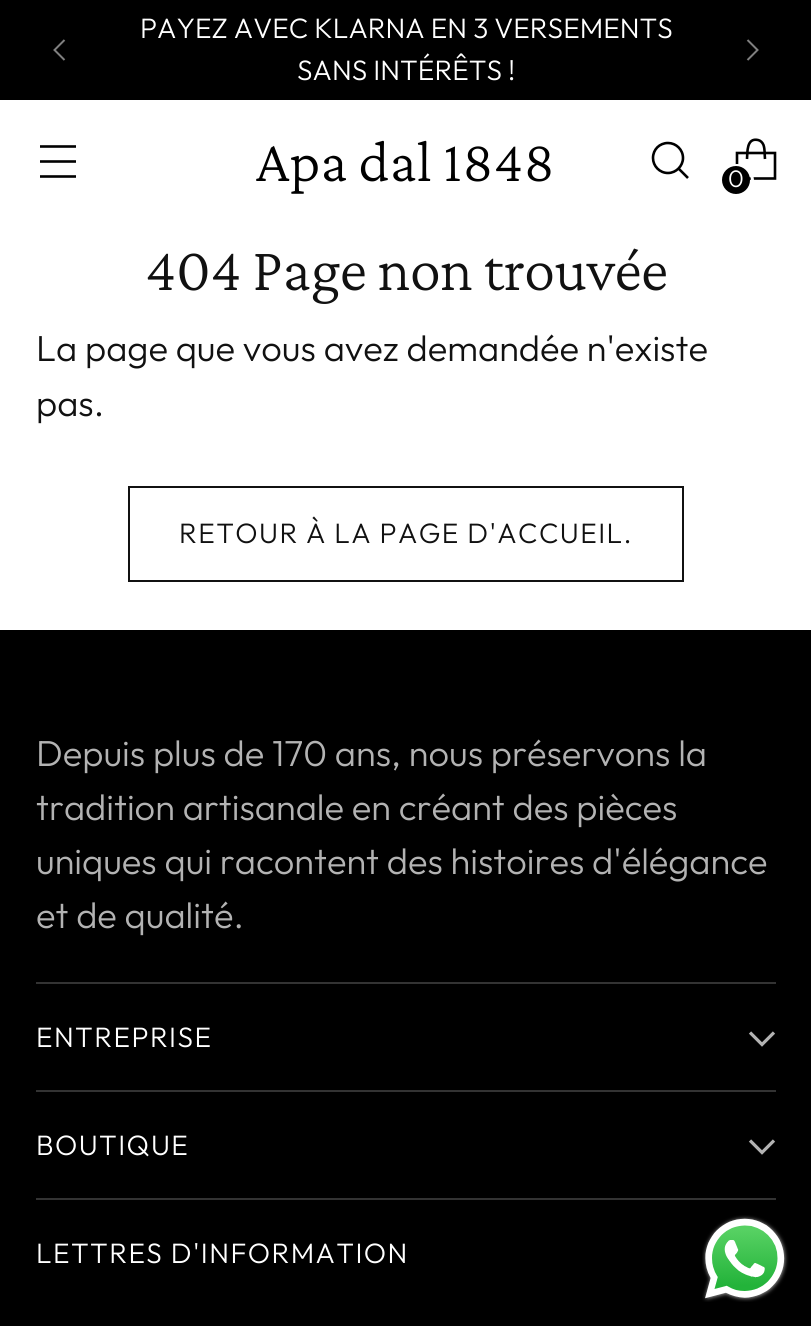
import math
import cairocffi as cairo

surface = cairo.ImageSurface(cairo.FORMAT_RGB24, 811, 1326)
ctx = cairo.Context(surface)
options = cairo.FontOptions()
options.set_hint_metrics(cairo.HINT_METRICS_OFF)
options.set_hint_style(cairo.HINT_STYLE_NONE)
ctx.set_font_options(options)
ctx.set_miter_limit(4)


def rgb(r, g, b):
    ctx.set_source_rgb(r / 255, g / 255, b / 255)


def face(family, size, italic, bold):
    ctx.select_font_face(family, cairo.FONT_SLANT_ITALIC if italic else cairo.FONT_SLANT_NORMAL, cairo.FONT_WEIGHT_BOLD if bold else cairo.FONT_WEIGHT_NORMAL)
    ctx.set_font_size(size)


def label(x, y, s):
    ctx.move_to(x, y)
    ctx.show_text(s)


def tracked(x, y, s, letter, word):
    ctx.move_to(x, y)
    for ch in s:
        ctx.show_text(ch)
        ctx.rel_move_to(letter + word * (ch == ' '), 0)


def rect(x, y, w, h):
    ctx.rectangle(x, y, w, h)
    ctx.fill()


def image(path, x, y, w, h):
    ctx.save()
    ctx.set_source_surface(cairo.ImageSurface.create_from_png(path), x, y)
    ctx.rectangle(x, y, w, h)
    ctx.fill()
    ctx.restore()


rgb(255, 255, 255)
ctx.paint()
rgb(0, 0, 0)
rect(0, 0, 811, 100)
face('Outfit Light', 28.1, 0, 0)
rgb(255, 255, 255)
label(140, 38, 'PAYEZ AVEC KLARNA EN 3 VERSEMENTS')
label(297, 80, 'SANS INTÉRÊTS !')
ctx.new_path()
ctx.move_to(64.5, 40)
ctx.line_to(54.5, 50)
ctx.line_to(64.5, 60)
rgb(128, 128, 128)
ctx.stroke()
ctx.new_path()
ctx.move_to(747.5, 60)
ctx.line_to(757.5, 50)
ctx.line_to(747.5, 40)
ctx.stroke()
ctx.new_path()
ctx.move_to(40, 161.5)
ctx.line_to(76, 161.5)
ctx.move_to(40, 146.5)
ctx.line_to(76, 146.5)
ctx.move_to(40, 176.5)
ctx.line_to(76, 176.5)
rgb(0, 0, 0)
ctx.set_line_width(2.6)
ctx.stroke()
face('Crimson Pro Light', 59.5, 0, 0)
label(256, 181, 'Apa dal 1848')
ctx.new_path()
ctx.move_to(668, 173)
ctx.curve_to(676, 173, 683, 166, 683, 158)
ctx.curve_to(683, 149.5, 676, 143, 668, 143)
ctx.curve_to(659.5, 143, 653, 149.5, 653, 158)
ctx.curve_to(653, 166, 659.5, 173, 668, 173)
ctx.close_path()
ctx.set_line_cap(cairo.LINE_CAP_ROUND)
ctx.stroke()
ctx.new_path()
ctx.move_to(678.5, 168.5)
ctx.line_to(688, 178)
ctx.set_line_cap(cairo.LINE_CAP_BUTT)
ctx.stroke()
ctx.new_path()
ctx.move_to(765, 159)
ctx.curve_to(764.5, 154.5, 765, 149.5, 763.5, 145)
ctx.curve_to(762.5, 142.5, 760.5, 140.5, 758, 140)
ctx.curve_to(746.5, 137.5, 747.5, 152, 747, 159)
ctx.set_line_join(cairo.LINE_JOIN_BEVEL)
ctx.stroke()
ctx.new_path()
ctx.move_to(775, 178.5)
ctx.line_to(775, 153)
ctx.line_to(737, 153)
ctx.line_to(737, 178.5)
ctx.close_path()
ctx.set_line_join(cairo.LINE_JOIN_MITER)
ctx.stroke()
ctx.arc(737, 181, 15.5, 0, 2 * math.pi)
rgb(255, 255, 255)
ctx.set_line_width(3)
ctx.stroke()
rgb(0, 0, 0)
ctx.arc(736, 180, 14, 0, 2 * math.pi)
ctx.fill()
face('Outfit Light', 24, 0, 0)
rgb(255, 255, 255)
label(728, 187, '0')
face('Crimson Pro Light', 62.75, 0, 0)
rgb(17, 17, 17)
tracked(145, 290, '404 Page non trouvée', -0.6, 0)
face('Outfit Light', 36.2, 0, 0)
label(36, 361, 'La page que vous avez demandée n\'existe')
label(36, 416, 'pas.')
ctx.rectangle(129, 487, 554, 94)
ctx.set_line_width(2)
ctx.stroke()
face('Outfit Light', 28.1, 0, 0)
tracked(179, 543, 'RETOUR À LA PAGE D\'ACCUEIL.', 1.4, 0)
rgb(0, 0, 0)
rect(0, 630, 811, 696)
rgb(51, 51, 51)
rect(36, 982, 740, 2)
face('Outfit Light', 36.2, 0, 0)
rgb(179, 179, 179)
label(36, 766, 'Depuis plus de 170 ans, nous préservons la')
label(36, 820, 'tradition artisanale en créant des pièces')
label(36, 874, 'uniques qui racontent des histoires d\'élégance')
label(36, 928, 'et de qualité.')
rgb(51, 51, 51)
rect(36, 1090, 740, 2)
face('Outfit Light', 28.1, 0, 0)
rgb(255, 255, 255)
tracked(36, 1047, 'ENTREPRISE', 1.4, 0)
ctx.new_path()
ctx.move_to(750, 1032.5)
ctx.line_to(762, 1044.5)
ctx.line_to(774, 1032.5)
rgb(179, 179, 179)
ctx.set_line_width(3.2)
ctx.stroke()
rgb(51, 51, 51)
rect(36, 1198, 740, 2)
rgb(255, 255, 255)
tracked(36, 1155, 'BOUTIQUE', 1.4, 0)
ctx.new_path()
ctx.move_to(750, 1140.5)
ctx.line_to(762, 1152.5)
ctx.line_to(774, 1140.5)
rgb(179, 179, 179)
ctx.stroke()
rgb(255, 255, 255)
tracked(36, 1263, 'LETTRES D\'INFORMATION', 1.4, 0)
image('image0.png', 702, 1215, 87, 87)
surface.write_to_png('render.png')
